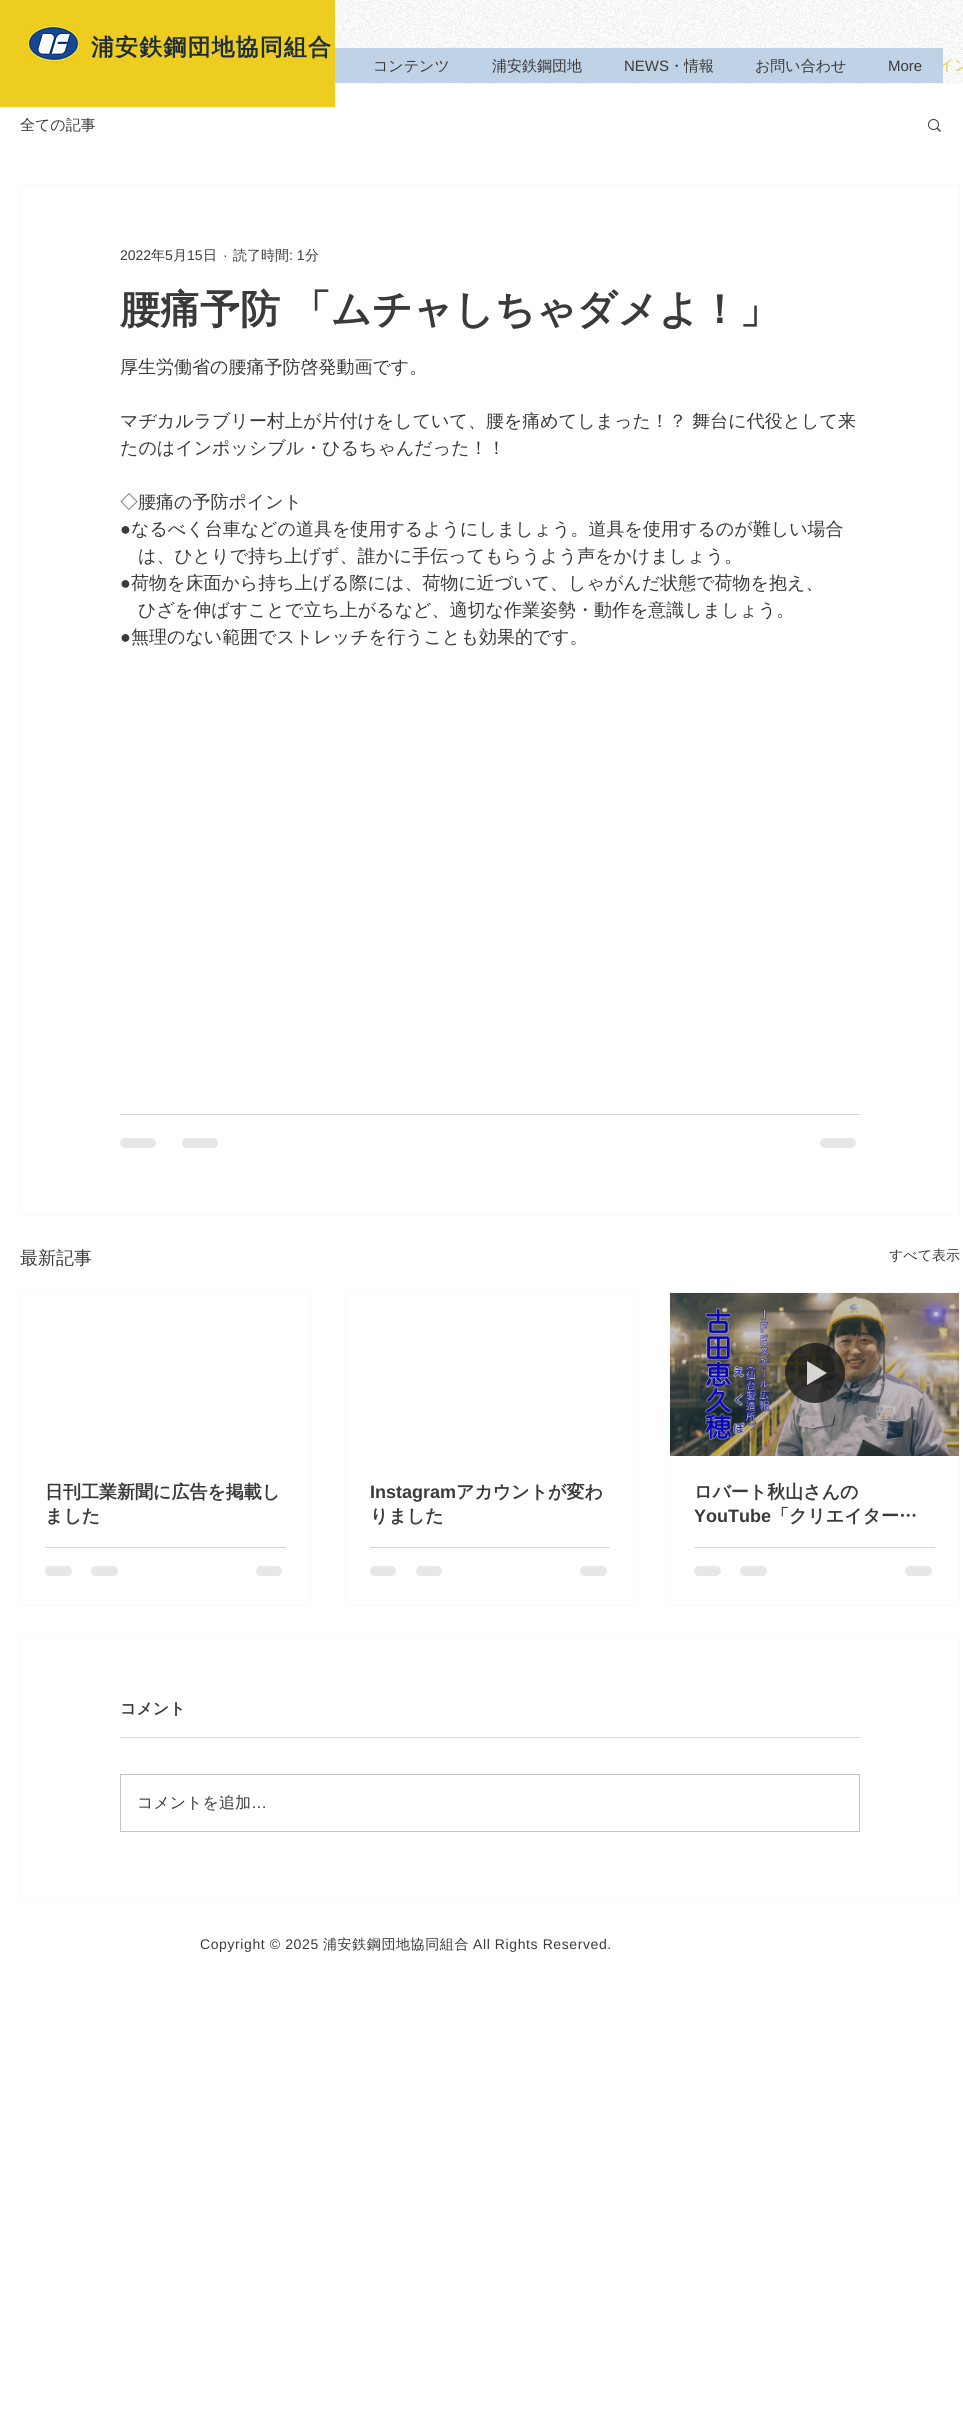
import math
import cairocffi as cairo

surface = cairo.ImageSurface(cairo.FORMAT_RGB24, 963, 2414)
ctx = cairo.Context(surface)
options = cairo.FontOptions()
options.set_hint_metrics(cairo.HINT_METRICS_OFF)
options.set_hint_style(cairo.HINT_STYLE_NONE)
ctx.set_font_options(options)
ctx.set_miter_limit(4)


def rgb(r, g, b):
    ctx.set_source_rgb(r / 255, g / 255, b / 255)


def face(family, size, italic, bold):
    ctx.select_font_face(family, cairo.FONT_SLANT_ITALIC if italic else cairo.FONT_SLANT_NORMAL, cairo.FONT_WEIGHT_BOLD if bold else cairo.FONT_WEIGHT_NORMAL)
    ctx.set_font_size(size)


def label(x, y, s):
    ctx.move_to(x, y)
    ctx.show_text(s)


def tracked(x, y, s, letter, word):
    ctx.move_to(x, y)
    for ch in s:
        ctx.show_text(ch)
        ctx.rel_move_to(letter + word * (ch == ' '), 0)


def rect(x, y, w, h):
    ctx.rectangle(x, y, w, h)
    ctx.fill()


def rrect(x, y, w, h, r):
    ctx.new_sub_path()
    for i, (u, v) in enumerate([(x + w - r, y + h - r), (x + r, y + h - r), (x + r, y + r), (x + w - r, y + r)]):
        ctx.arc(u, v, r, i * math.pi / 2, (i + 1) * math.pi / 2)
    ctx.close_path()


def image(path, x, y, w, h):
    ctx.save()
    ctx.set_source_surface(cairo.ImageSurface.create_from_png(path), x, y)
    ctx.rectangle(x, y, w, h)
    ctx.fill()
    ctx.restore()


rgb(255, 255, 255)
ctx.paint()
rgb(237, 205, 31)
rect(0, 0, 335, 107)
image('image0.png', 28, 25, 51, 37)
face('WenQuanYi Zen Hei', 23, 0, 1)
rgb(30, 45, 59)
tracked(91, 55, '浦安鉄鋼団地協同組合', 1.1, 0)
image('image1.png', 335, 0, 628, 84)
face('WenQuanYi Zen Hei Medium', 15, 0, 0)
rgb(237, 205, 31)
label(939, 70, 'イン')
rgb(192, 210, 229)
rect(335, 48, 608, 35)
rgb(59, 58, 58)
label(373, 71, 'コンテンツ')
label(492, 71, '浦安鉄鋼団地')
face('Liberation Sans', 15, 0, 0)
label(624, 71, 'NEWS')
face('WenQuanYi Zen Hei Medium', 15, 0, 0)
label(669, 71, '・情報')
label(755, 71, 'お問い合わせ')
face('Liberation Sans', 15, 0, 0)
label(888, 71, 'More')
face('WenQuanYi Zen Hei Medium', 15, 0, 0)
label(20, 130, '全ての記事')
image('image2.png', 928, 119, 13, 13)
ctx.rectangle(20.5, 184.5, 939, 1030)
rgb(249, 249, 249)
ctx.set_line_width(1)
ctx.stroke()
face('Liberation Sans', 14, 0, 0)
rgb(59, 58, 58)
label(120, 260, '2022')
face('WenQuanYi Zen Hei Medium', 14, 0, 0)
label(151, 260, '年')
face('Liberation Sans', 14, 0, 0)
label(165, 260, '5')
face('WenQuanYi Zen Hei Medium', 14, 0, 0)
label(173, 260, '月')
face('Liberation Sans', 14, 0, 0)
label(187, 260, '15')
face('WenQuanYi Zen Hei Medium', 14, 0, 0)
label(203, 260, '日')
face('Liberation Sans', 14, 0, 0)
label(223, 260, '·')
face('WenQuanYi Zen Hei Medium', 14, 0, 0)
label(233, 260, '読了時間')
face('Liberation Sans', 14, 0, 0)
label(289, 260, ': 1')
face('WenQuanYi Zen Hei Medium', 14, 0, 0)
label(305, 260, '分')
face('WenQuanYi Zen Hei', 40, 0, 1)
tracked(120, 323, '腰痛予防 「ムチャしちゃダメよ！」', 0, -1)
face('WenQuanYi Zen Hei Medium', 18, 0, 0)
label(120, 373, '厚生労働省の腰痛予防啓発動画です。')
label(120, 427, 'マヂカルラブリー村上が片付けをしていて、腰を痛めてしまった！？ 舞台に代役として来')
label(120, 454, 'たのはインポッシブル・ひるちゃんだった！！')
label(120, 508, '◇腰痛の予防ポイント')
face('Liberation Sans', 18, 0, 0)
label(120, 535, '●')
face('WenQuanYi Zen Hei Medium', 18, 0, 0)
label(131, 535, 'なるべく台車などの道具を使用するようにしましょう。道具を使用するのが難しい場合')
label(138, 562, 'は、ひとりで持ち上げず、誰かに手伝ってもらうよう声をかけましょう。')
face('Liberation Sans', 18, 0, 0)
label(120, 589, '●')
face('WenQuanYi Zen Hei Medium', 18, 0, 0)
label(131, 589, '荷物を床面から持ち上げる際には、荷物に近づいて、しゃがんだ状態で荷物を抱え、')
label(138, 616, 'ひざを伸ばすことで立ち上がるなど、適切な作業姿勢・動作を意識しましょう。')
face('Liberation Sans', 18, 0, 0)
label(120, 643, '●')
face('WenQuanYi Zen Hei Medium', 18, 0, 0)
label(131, 643, '無理のない範囲でストレッチを行うことも効果的です。')
rgb(216, 216, 216)
rect(120, 1114, 740, 1)
rgb(231, 231, 231)
rrect(120, 1138, 36, 10, 5)
ctx.fill()
rrect(182, 1138, 36, 10, 5)
ctx.fill()
rrect(820, 1138, 36, 10, 5)
ctx.fill()
rgb(59, 58, 58)
label(20, 1264, '最新記事')
face('WenQuanYi Zen Hei Medium', 14, 0, 0)
label(889, 1260, 'すべて表示')
ctx.rectangle(20.5, 1292.5, 290, 313)
rgb(249, 249, 249)
ctx.stroke()
face('WenQuanYi Zen Hei', 18, 0, 1)
rgb(59, 58, 58)
label(45, 1498, '日刊工業新聞に広告を掲載し')
label(45, 1522, 'ました')
rgb(216, 216, 216)
rect(45, 1547, 241, 1)
rgb(231, 231, 231)
rrect(45, 1566, 27, 10, 5)
ctx.fill()
rrect(91, 1566, 27, 10, 5)
ctx.fill()
rrect(256, 1566, 26, 10, 5)
ctx.fill()
ctx.rectangle(345.5, 1292.5, 289, 313)
rgb(249, 249, 249)
ctx.stroke()
face('Liberation Sans', 18, 0, 1)
rgb(59, 58, 58)
label(370, 1498, 'Instagram')
face('WenQuanYi Zen Hei', 18, 0, 1)
label(456, 1498, 'アカウントが変わ')
label(370, 1522, 'りました')
rgb(216, 216, 216)
rect(370, 1547, 240, 1)
rgb(231, 231, 231)
rrect(370, 1566, 26, 10, 5)
ctx.fill()
rrect(416, 1566, 26, 10, 5)
ctx.fill()
rrect(580, 1566, 27, 10, 5)
ctx.fill()
ctx.rectangle(669.5, 1292.5, 290, 313)
rgb(249, 249, 249)
ctx.stroke()
image('image3.png', 670, 1293, 289, 163)
ctx.set_source_rgba(0.102, 0.102, 0.102, 0.8)
ctx.arc(815, 1373, 30, 0, 2 * math.pi)
ctx.fill()
ctx.set_source_rgba(1, 1, 1, 0.8)
ctx.new_path()
ctx.move_to(807, 1361)
ctx.line_to(807, 1385)
ctx.line_to(827, 1373)
ctx.close_path()
ctx.fill()
rgb(59, 58, 58)
label(694, 1498, 'ロバート秋山さんの')
face('Liberation Sans', 18, 0, 1)
label(694, 1522, 'YouTube')
face('WenQuanYi Zen Hei', 18, 0, 1)
label(771, 1522, '「クリエイター…')
rgb(216, 216, 216)
rect(694, 1547, 241, 1)
rgb(231, 231, 231)
rrect(694, 1566, 27, 10, 5)
ctx.fill()
rrect(740, 1566, 27, 10, 5)
ctx.fill()
rrect(905, 1566, 27, 10, 5)
ctx.fill()
ctx.rectangle(20.5, 1636.5, 939, 264)
rgb(249, 249, 249)
ctx.stroke()
face('WenQuanYi Zen Hei', 16, 0, 1)
rgb(59, 58, 58)
label(120, 1714, 'コメント')
rgb(216, 216, 216)
rect(120, 1737, 740, 1)
ctx.rectangle(120.5, 1774.5, 739, 57)
rgb(196, 196, 196)
ctx.stroke()
face('WenQuanYi Zen Hei Medium', 16, 0, 0)
rgb(59, 58, 58)
label(137, 1808, 'コメントを追加')
face('Liberation Sans', 16, 0, 0)
label(251, 1808, '…')
face('Liberation Sans', 14, 0, 0)
tracked(200, 1949, 'Copyright © 2025', 0.6, 0)
face('WenQuanYi Zen Hei Medium', 14, 0, 0)
tracked(323, 1949, '浦安鉄鋼団地協同組合', 0.6, 0)
face('Liberation Sans', 14, 0, 0)
tracked(473, 1949, 'All Rights Reserved.', 0.6, 0)
surface.write_to_png('render.png')
